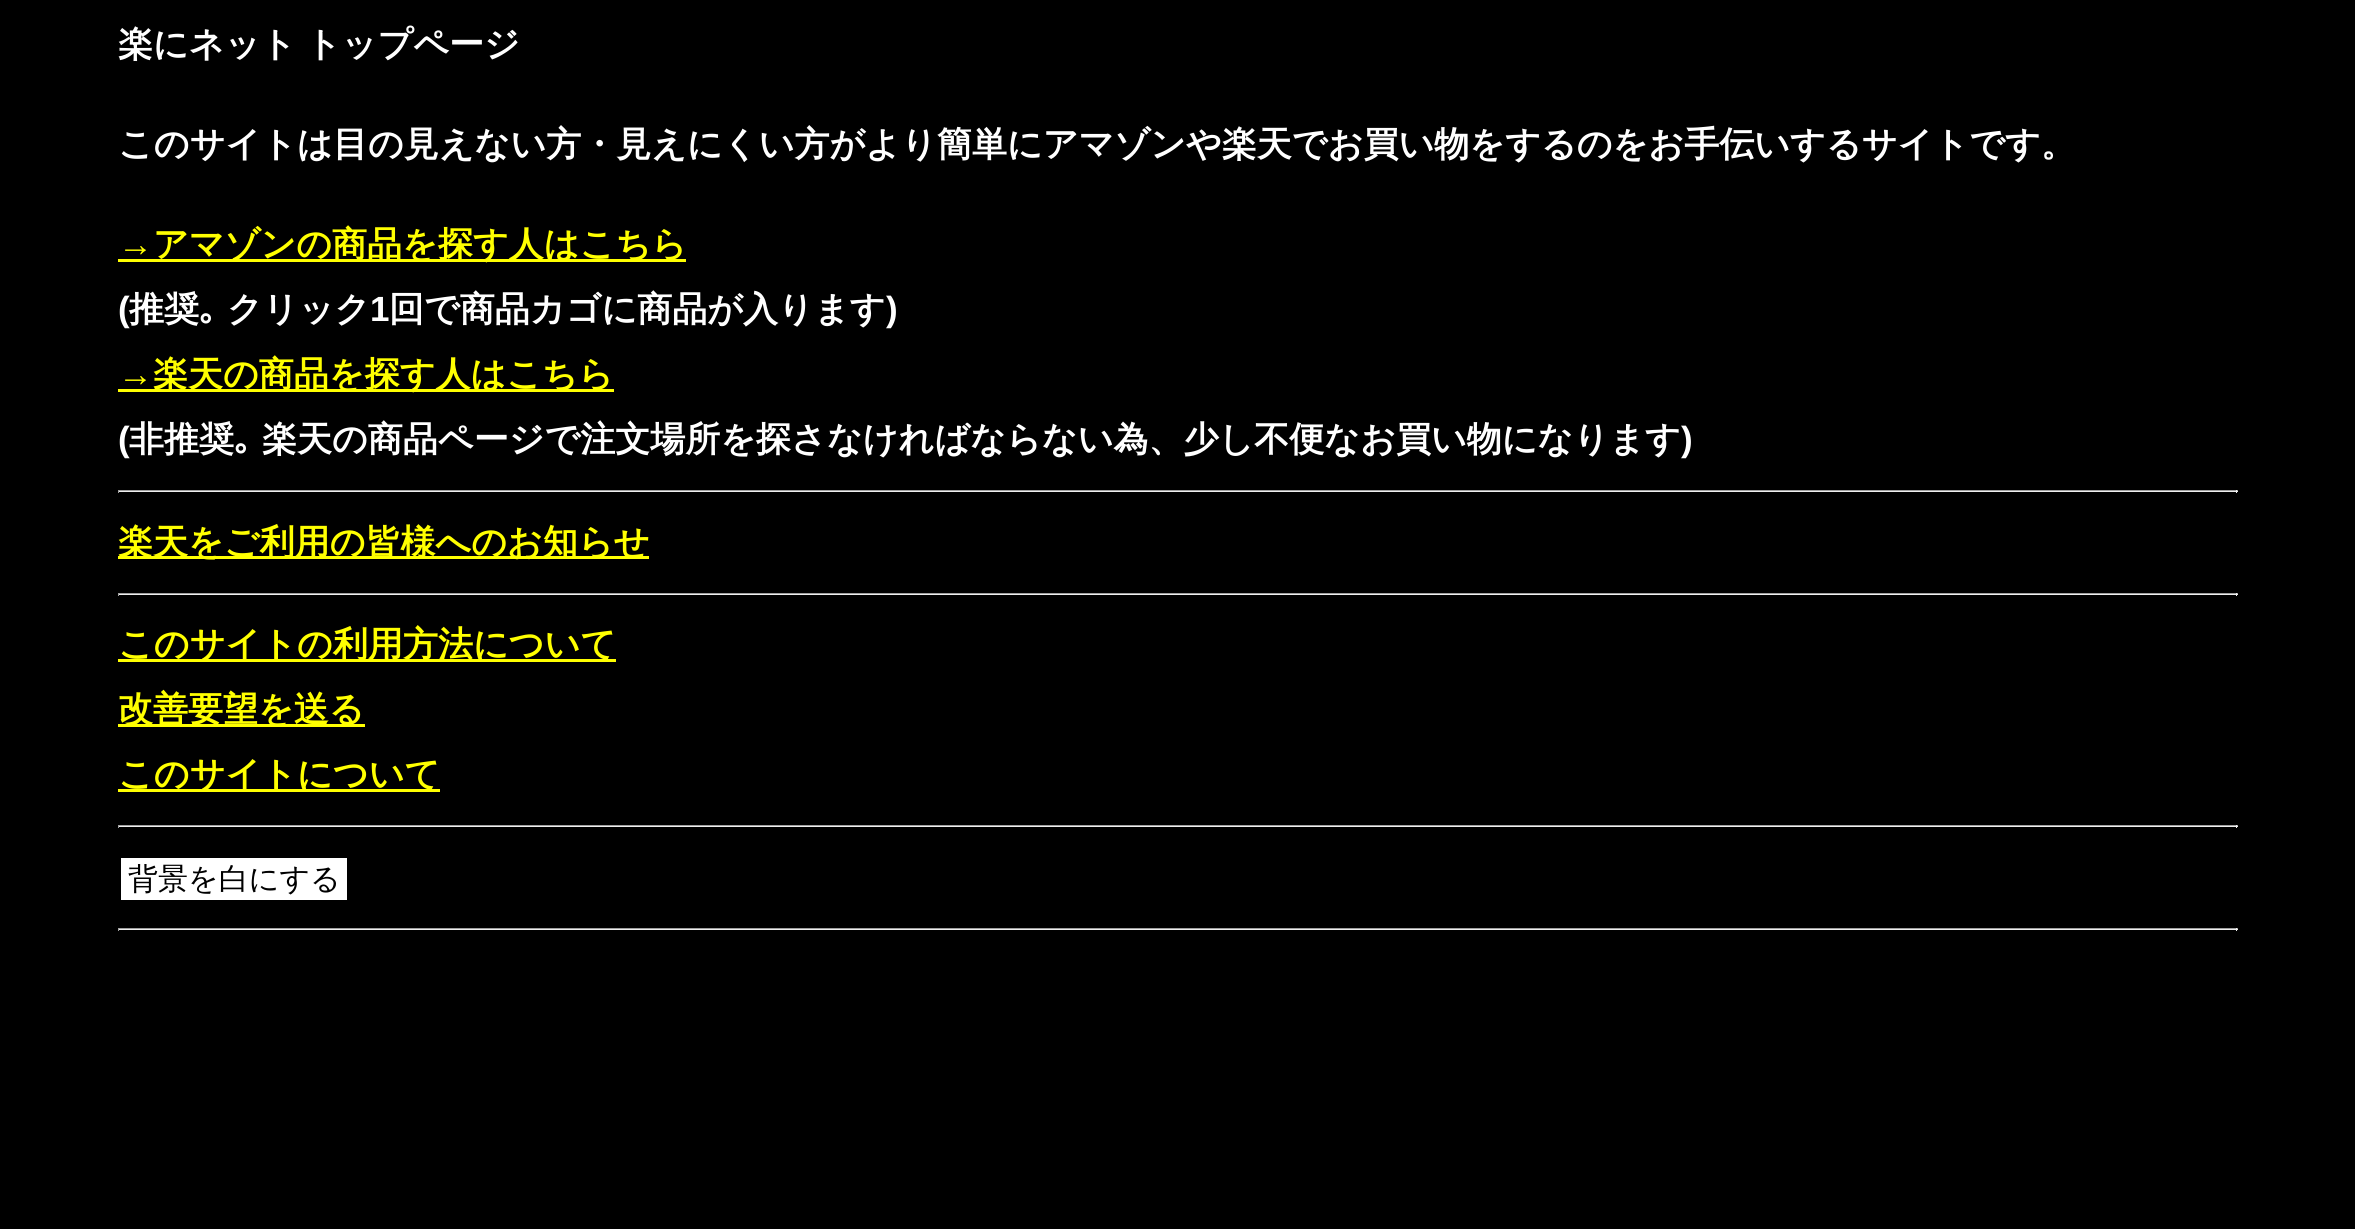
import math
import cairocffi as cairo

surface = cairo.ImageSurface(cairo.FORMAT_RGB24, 2355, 1229)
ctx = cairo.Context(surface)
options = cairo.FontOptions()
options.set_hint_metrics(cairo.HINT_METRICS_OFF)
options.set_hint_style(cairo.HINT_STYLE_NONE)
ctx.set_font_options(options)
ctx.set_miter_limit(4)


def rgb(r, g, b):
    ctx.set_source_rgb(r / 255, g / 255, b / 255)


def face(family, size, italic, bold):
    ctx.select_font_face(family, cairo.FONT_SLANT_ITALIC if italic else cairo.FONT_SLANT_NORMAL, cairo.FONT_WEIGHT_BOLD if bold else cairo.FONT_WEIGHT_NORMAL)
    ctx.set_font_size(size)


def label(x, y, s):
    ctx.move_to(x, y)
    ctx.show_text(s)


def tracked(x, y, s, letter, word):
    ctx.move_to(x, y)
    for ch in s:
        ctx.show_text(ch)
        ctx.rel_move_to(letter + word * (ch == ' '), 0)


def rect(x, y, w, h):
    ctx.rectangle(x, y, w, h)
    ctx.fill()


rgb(0, 0, 0)
ctx.paint()
face('WenQuanYi Zen Hei', 35, 0, 1)
rgb(255, 255, 255)
tracked(118, 56, '楽にネット トップページ', 0, -1)
label(118, 156, 'このサイトは目の見えない方・見えにくい方がより簡単にアマゾンや楽天でお買い物をするのをお手伝いするサイトです。')
face('Liberation Sans', 35, 0, 1)
rgb(255, 255, 0)
label(118, 256, '→')
rect(118, 259, 568, 3)
face('WenQuanYi Zen Hei', 35, 0, 1)
label(153, 256, 'アマゾンの商品を探す人はこちら')
face('Liberation Sans', 35, 0, 1)
rgb(255, 255, 255)
label(118, 321, '(')
face('WenQuanYi Zen Hei', 35, 0, 1)
label(129, 321, '推奨')
face('IPAPGothic', 35, 0, 1)
label(199, 321, '｡')
face('WenQuanYi Zen Hei', 35, 0, 1)
label(227, 321, 'クリック')
face('Liberation Sans', 35, 0, 1)
label(370, 321, '1')
face('WenQuanYi Zen Hei', 35, 0, 1)
label(389, 321, '回で商品カゴに商品が入ります')
face('Liberation Sans', 35, 0, 1)
label(886, 321, ')')
rgb(255, 255, 0)
label(118, 386, '→')
rect(118, 389, 496, 3)
face('WenQuanYi Zen Hei', 35, 0, 1)
label(153, 386, '楽天の商品を探す人はこちら')
face('Liberation Sans', 35, 0, 1)
rgb(255, 255, 255)
label(118, 451, '(')
face('WenQuanYi Zen Hei', 35, 0, 1)
label(129, 451, '非推奨')
face('IPAPGothic', 35, 0, 1)
label(234, 451, '｡')
face('WenQuanYi Zen Hei', 35, 0, 1)
label(262, 451, '楽天の商品ページで注文場所を探さなければならない為、少し不便なお買い物になります')
face('Liberation Sans', 35, 0, 1)
label(1681, 451, ')')
rgb(159, 159, 159)
rect(118, 490, 2120, 1)
rgb(238, 238, 238)
rect(2236, 490, 1, 3)
rect(118, 491, 2120, 1)
rgb(159, 159, 159)
rect(118, 490, 1, 3)
rgb(255, 255, 0)
rect(118, 556, 531, 3)
face('WenQuanYi Zen Hei', 35, 0, 1)
label(118, 554, '楽天をご利用の皆様へのお知らせ')
rgb(159, 159, 159)
rect(118, 593, 2120, 1)
rgb(238, 238, 238)
rect(2236, 593, 1, 3)
rect(118, 594, 2120, 1)
rgb(159, 159, 159)
rect(118, 593, 1, 3)
rgb(255, 255, 0)
rect(118, 659, 498, 3)
label(118, 656, 'このサイトの利用方法について')
rect(118, 724, 247, 3)
label(118, 721, '改善要望を送る')
rect(118, 789, 322, 3)
label(118, 786, 'このサイトについて')
rgb(159, 159, 159)
rect(118, 825, 2120, 1)
rgb(238, 238, 238)
rect(2236, 825, 1, 3)
rect(118, 826, 2120, 1)
rgb(159, 159, 159)
rect(118, 825, 1, 3)
rgb(255, 255, 255)
rect(121, 858, 226, 42)
face('WenQuanYi Zen Hei Medium', 30, 0, 0)
rgb(0, 0, 0)
label(128, 889, '背景を白にする')
rgb(159, 159, 159)
rect(118, 928, 2120, 1)
rgb(238, 238, 238)
rect(2236, 928, 1, 3)
rect(118, 929, 2120, 1)
rgb(159, 159, 159)
rect(118, 928, 1, 3)
surface.write_to_png('render.png')
